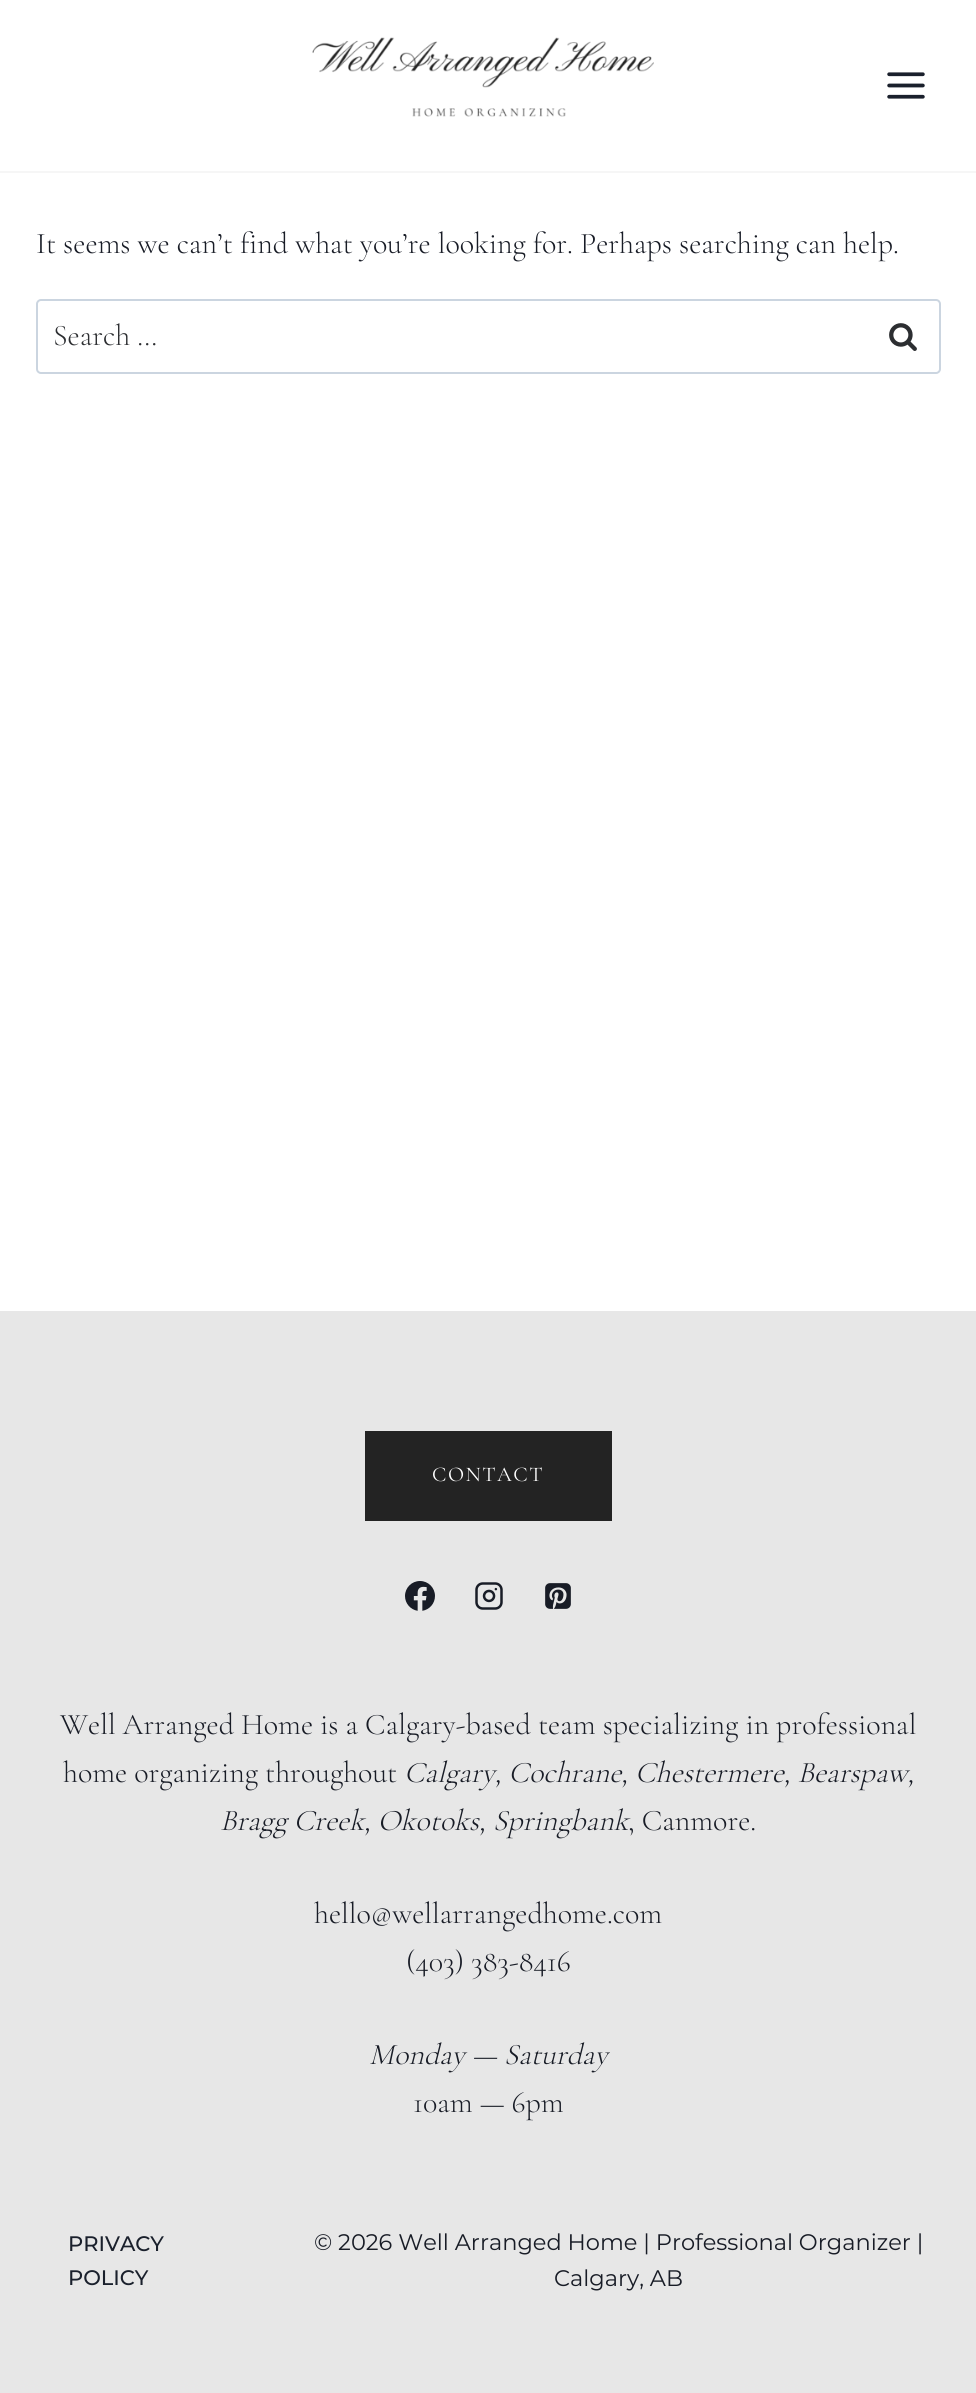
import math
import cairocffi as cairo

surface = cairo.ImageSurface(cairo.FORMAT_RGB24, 976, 2393)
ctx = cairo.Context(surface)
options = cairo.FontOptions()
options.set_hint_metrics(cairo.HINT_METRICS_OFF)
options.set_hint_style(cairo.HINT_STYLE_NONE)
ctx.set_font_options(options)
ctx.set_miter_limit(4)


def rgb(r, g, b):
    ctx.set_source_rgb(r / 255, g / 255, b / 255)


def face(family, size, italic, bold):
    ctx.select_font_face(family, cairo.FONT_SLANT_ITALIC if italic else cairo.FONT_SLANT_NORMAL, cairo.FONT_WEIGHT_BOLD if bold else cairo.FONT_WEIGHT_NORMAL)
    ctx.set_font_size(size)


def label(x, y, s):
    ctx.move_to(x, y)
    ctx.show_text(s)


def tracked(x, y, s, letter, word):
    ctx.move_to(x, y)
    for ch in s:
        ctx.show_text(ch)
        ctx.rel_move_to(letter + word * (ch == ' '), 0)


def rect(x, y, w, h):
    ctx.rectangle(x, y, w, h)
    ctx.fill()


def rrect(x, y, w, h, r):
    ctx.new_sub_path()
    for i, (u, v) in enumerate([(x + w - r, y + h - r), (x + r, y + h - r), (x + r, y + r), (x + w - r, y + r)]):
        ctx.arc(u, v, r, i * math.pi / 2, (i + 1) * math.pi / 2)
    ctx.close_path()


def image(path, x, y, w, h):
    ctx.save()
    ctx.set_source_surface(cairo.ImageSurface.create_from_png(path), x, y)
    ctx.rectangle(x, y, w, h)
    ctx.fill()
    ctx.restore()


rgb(255, 255, 255)
ctx.paint()
rgb(246, 246, 246)
rect(0, 171, 976, 2)
image('image0.png', 312, 37, 342, 80)
image('image1.png', 887, 72, 38, 27)
face('Cormorant Garamond Light', 30, 0, 0)
rgb(24, 28, 38)
label(36, 253, 'It seems we can’t find what you’re looking for. Perhaps searching can help.')
rrect(37, 300, 903, 73, 4)
rgb(203, 213, 224)
ctx.stroke()
rgb(44, 46, 49)
label(53, 345, 'Search …')
image('image2.png', 889, 323, 28, 28)
rgb(231, 231, 231)
rect(0, 1311, 976, 1082)
rgb(35, 35, 35)
rect(365, 1431, 247, 90)
face('Cormorant Garamond', 21, 0, 0)
rgb(255, 255, 255)
tracked(432, 1481, 'CONTACT', 1.5, 0)
image('image3.png', 405, 1581, 30, 30)
image('image4.png', 475, 1582, 28, 28)
image('image5.png', 545, 1583, 26, 26)
face('Cormorant Garamond Light', 30, 0, 0)
rgb(24, 28, 38)
label(60, 1734, 'Well Arranged Home is a Calgary-based team specializing in professional')
label(63, 1782, 'home organizing throughout')
face('Cormorant Garamond Light', 30, 1, 0)
label(404, 1782, 'Calgary, Cochrane, Chestermere, Bearspaw,')
label(220, 1830, 'Bragg Creek, Okotoks, Springbank')
face('Cormorant Garamond Light', 30, 0, 0)
label(628, 1830, ', Canmore.')
label(314, 1923, 'hello@wellarrangedhome.com')
label(406, 1971, '(403) 383-8416')
face('Cormorant Garamond Light', 30, 1, 0)
label(369, 2064, 'Monday — Saturday')
face('Cormorant Garamond Light', 30, 0, 0)
label(413, 2112, '10am — 6pm')
face('Montserrat Medium', 21, 0, 0)
rgb(26, 32, 44)
label(68, 2251, 'PRIVACY')
label(68, 2285, 'POLICY')
face('Montserrat', 22.5, 0, 0)
rgb(24, 28, 38)
label(314, 2250, '© 2026 Well Arranged Home | Professional Organizer |')
label(554, 2286, 'Calgary, AB')
surface.write_to_png('render.png')
